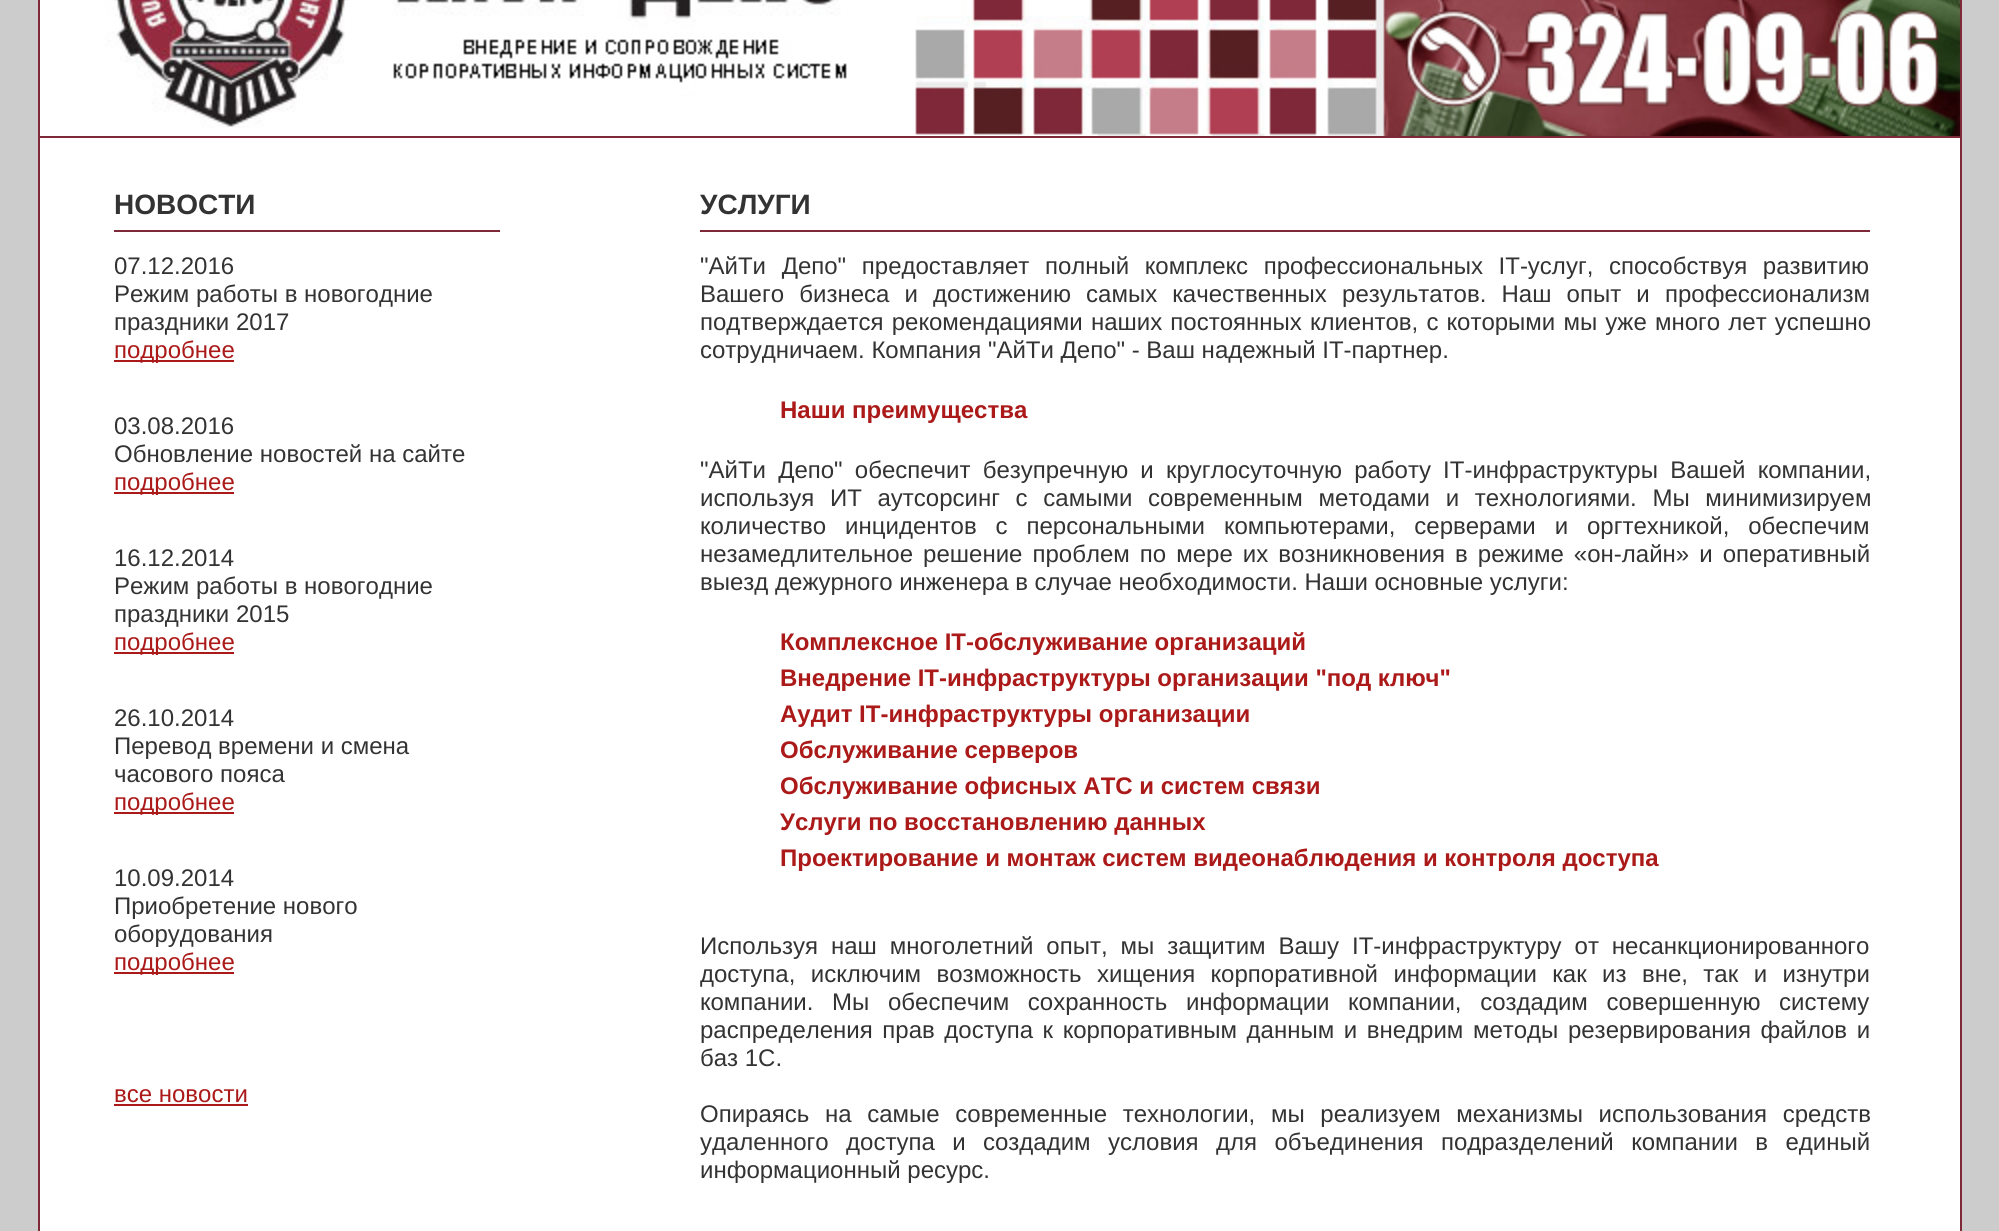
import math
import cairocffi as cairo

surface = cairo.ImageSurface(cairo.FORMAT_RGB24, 1999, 1231)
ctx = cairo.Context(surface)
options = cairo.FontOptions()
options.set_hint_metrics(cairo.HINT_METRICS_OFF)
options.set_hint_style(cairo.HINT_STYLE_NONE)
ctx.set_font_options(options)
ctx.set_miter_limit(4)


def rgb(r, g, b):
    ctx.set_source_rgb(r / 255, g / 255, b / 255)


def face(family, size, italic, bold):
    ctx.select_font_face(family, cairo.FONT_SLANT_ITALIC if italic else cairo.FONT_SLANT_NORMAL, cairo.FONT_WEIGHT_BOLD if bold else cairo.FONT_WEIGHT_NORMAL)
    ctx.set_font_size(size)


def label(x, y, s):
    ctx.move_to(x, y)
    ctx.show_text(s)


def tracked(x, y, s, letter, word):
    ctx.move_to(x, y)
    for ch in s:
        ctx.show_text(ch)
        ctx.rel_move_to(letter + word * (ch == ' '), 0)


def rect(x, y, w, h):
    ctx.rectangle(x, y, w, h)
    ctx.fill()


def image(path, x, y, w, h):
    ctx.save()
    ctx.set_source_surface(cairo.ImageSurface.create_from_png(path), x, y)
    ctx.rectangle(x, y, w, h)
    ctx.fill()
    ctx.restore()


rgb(204, 204, 204)
ctx.paint()
rgb(255, 255, 255)
rect(40, 0, 1920, 1231)
rgb(126, 41, 56)
rect(1960, 0, 2, 1231)
rect(38, 0, 2, 1231)
image('image0.png', 105, 0, 742, 128)
image('image1.png', 915, 0, 1045, 136)
rect(40, 136, 1920, 2)
face('Liberation Sans', 28, 0, 1)
rgb(51, 51, 51)
label(114, 214, 'НОВОСТИ')
rgb(126, 41, 56)
rect(114, 230, 386, 2)
face('Liberation Sans', 24, 0, 0)
rgb(51, 51, 51)
label(114, 274, '07.12.2016')
label(114, 302, 'Режим работы в новогодние')
label(114, 330, 'праздники 2017')
rgb(171, 25, 25)
rect(114, 360, 120, 2)
label(114, 358, 'подробнее')
rgb(51, 51, 51)
label(114, 434, '03.08.2016')
label(114, 462, 'Обновление новостей на сайте')
rgb(171, 25, 25)
rect(114, 492, 120, 2)
label(114, 490, 'подробнее')
rgb(51, 51, 51)
label(114, 566, '16.12.2014')
label(114, 594, 'Режим работы в новогодние')
label(114, 622, 'праздники 2015')
rgb(171, 25, 25)
rect(114, 652, 120, 2)
label(114, 650, 'подробнее')
rgb(51, 51, 51)
label(114, 726, '26.10.2014')
label(114, 754, 'Перевод времени и смена')
label(114, 782, 'часового пояса')
rgb(171, 25, 25)
rect(114, 812, 120, 2)
label(114, 810, 'подробнее')
rgb(51, 51, 51)
label(114, 886, '10.09.2014')
label(114, 914, 'Приобретение нового')
label(114, 942, 'оборудования')
rgb(171, 25, 25)
rect(114, 972, 120, 2)
label(114, 970, 'подробнее')
label(114, 1102, 'все новости')
rect(114, 1104, 134, 2)
face('Liberation Sans', 28, 0, 1)
rgb(51, 51, 51)
label(700, 214, 'УСЛУГИ')
rgb(126, 41, 56)
rect(700, 230, 1170, 2)
face('Liberation Sans', 24, 0, 0)
rgb(51, 51, 51)
tracked(700, 274, '"АйТи Депо" предоставляет полный комплекс профессиональных IT-услуг, способствуя развитию', 0, 9)
tracked(700, 302, 'Вашего бизнеса и достижению самых качественных результатов. Наш опыт и профессионализм', 0, 8.5)
tracked(700, 330, 'подтверждается рекомендациями наших постоянных клиентов, с которыми мы уже много лет успешно', 0, 1.5)
label(700, 358, 'сотрудничаем. Компания "АйТи Депо" - Ваш надежный IT-партнер.')
face('Liberation Sans', 24, 0, 1)
rgb(171, 25, 25)
label(780, 418, 'Наши преимущества')
face('Liberation Sans', 24, 0, 0)
rgb(51, 51, 51)
tracked(700, 478, '"АйТи Депо" обеспечит безупречную и круглосуточную работу IT-инфраструктуры Вашей компании,', 0, 5.5)
tracked(700, 506, 'используя ИТ аутсорсинг с самыми современным методами и технологиями. Мы минимизируем', 0, 9)
tracked(700, 534, 'количество инцидентов с персональными компьютерами, серверами и оргтехникой, обеспечим', 0, 12.25)
tracked(700, 562, 'незамедлительное решение проблем по мере их возникновения в режиме «он-лайн» и оперативный', 0, 3.4)
label(700, 590, 'выезд дежурного инженера в случае необходимости. Наши основные услуги:')
face('Liberation Sans', 24, 0, 1)
rgb(171, 25, 25)
label(780, 650, 'Комплексное IT-обслуживание организаций')
label(780, 686, 'Внедрение IT-инфраструктуры организации "под ключ"')
label(780, 722, 'Аудит IT-инфраструктуры организации')
label(780, 758, 'Обслуживание серверов')
label(780, 794, 'Обслуживание офисных АТС и систем связи')
label(780, 830, 'Услуги по восстановлению данных')
label(780, 866, 'Проектирование и монтаж систем видеонаблюдения и контроля доступа')
face('Liberation Sans', 24, 0, 0)
rgb(51, 51, 51)
tracked(700, 954, 'Используя наш многолетний опыт, мы защитим Вашу IT-инфраструктуру от несанкционированного', 0, 6.25)
tracked(700, 982, 'доступа, исключим возможность хищения корпоративной информации как из вне, так и изнутри', 0, 8.75)
tracked(700, 1010, 'компании. Мы обеспечим сохранность информации компании, создадим совершенную систему', 0, 12)
tracked(700, 1038, 'распределения прав доступа к корпоративным данным и внедрим методы резервирования файлов и', 0, 2.9)
label(700, 1066, 'баз 1С.')
tracked(700, 1122, 'Опираясь на самые современные технологии, мы реализуем механизмы использования средств', 0, 9)
tracked(700, 1150, 'удаленного доступа и создадим условия для объединения подразделений компании в единый', 0, 10.75)
label(700, 1178, 'информационный ресурс.')
surface.write_to_png('render.png')
